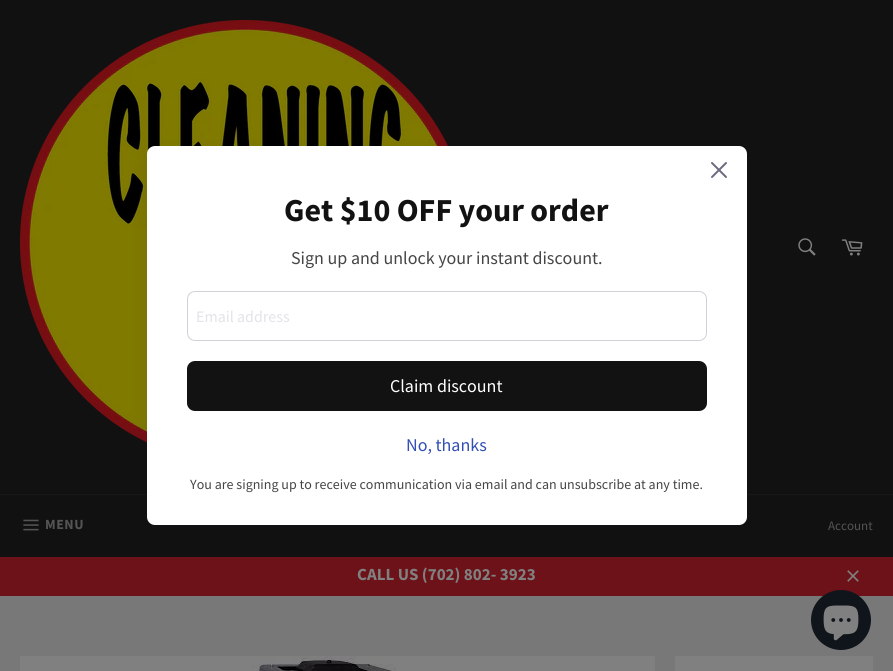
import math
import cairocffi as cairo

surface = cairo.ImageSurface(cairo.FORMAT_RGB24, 893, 671)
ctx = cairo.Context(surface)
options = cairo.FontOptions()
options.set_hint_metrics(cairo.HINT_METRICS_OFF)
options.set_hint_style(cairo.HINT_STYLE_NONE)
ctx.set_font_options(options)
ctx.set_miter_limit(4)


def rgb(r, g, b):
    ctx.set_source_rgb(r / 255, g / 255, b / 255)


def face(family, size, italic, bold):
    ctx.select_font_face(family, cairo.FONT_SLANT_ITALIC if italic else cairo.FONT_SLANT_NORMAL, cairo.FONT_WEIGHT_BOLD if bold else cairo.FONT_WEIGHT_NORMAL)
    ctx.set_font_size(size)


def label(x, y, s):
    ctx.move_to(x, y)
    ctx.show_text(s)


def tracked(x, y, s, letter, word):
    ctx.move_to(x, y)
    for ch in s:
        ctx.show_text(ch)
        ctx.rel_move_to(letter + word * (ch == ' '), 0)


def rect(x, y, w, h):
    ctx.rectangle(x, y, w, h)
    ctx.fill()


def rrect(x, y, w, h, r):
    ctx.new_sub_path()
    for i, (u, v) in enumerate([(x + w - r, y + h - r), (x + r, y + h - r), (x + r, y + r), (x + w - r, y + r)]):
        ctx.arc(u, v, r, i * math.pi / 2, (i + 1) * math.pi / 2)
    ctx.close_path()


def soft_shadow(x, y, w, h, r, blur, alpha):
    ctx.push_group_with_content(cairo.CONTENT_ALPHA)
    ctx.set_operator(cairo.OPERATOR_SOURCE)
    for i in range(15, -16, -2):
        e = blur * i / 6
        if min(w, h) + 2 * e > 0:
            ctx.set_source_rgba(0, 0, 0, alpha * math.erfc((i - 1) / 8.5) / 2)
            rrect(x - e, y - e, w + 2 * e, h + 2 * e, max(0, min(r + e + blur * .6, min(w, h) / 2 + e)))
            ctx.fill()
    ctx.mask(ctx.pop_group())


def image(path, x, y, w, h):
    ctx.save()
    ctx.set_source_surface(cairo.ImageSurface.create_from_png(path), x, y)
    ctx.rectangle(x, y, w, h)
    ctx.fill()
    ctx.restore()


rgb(120, 120, 120)
ctx.paint()
rgb(17, 17, 17)
rect(0, 0, 893, 494)
image('image1.png', 20, 20, 428, 423)
rect(0, 495, 893, 62)
rgb(24, 24, 24)
rect(0, 494, 893, 1)
rgb(108, 18, 24)
rect(0, 557, 893, 39)
rgb(18, 17, 39)
soft_shadow(147, 154, 600, 379, 8, 10, 0.1)
rgb(255, 255, 255)
rrect(147, 146, 600, 379, 8)
ctx.fill()
image('image0.png', 711, 162, 16, 16)
face('Source Sans Pro', 32, 0, 1)
rgb(18, 18, 18)
label(284, 221, 'Get $10 OFF your order')
face('Source Sans Pro', 18, 0, 0)
rgb(69, 69, 69)
label(291, 264, 'Sign up and unlock your instant discount.')
rrect(187.5, 291.5, 519, 49, 7.5)
rgb(209, 209, 219)
ctx.set_line_width(1)
ctx.stroke()
face('Source Sans Pro', 16, 0, 0)
rgb(227, 227, 233)
label(196, 322, 'Email address')
rgb(18, 18, 18)
rrect(187, 361, 520, 50, 8)
ctx.fill()
face('Source Sans Pro', 18, 0, 0)
rgb(255, 255, 255)
label(390, 392, 'Claim discount')
rgb(51, 79, 180)
label(406, 451, 'No, thanks')
face('Source Sans Pro', 14, 0, 0)
rgb(69, 69, 69)
label(190, 489, 'You are signing up to receive communication via email and can unsubscribe at any time.')
image('image2.png', 798, 238, 18, 18)
image('image3.png', 841, 239, 22, 17)
image('image4.png', 23, 519, 16, 12)
face('Source Sans Pro', 14, 0, 1)
rgb(84, 84, 84)
tracked(45, 529, 'MENU', 0.5, 0)
face('Source Sans Pro', 13, 0, 0)
label(828, 530, 'Account')
face('Source Sans Pro', 17, 0, 1)
rgb(128, 128, 128)
label(357, 580, 'CALL US (702) 802- 3923')
image('image5.png', 847, 570, 12, 12)
rgb(16, 21, 27)
ctx.arc(841, 620, 30, 0, 2 * math.pi)
ctx.fill()
image('image6.png', 823, 605, 36, 36)
rgb(128, 128, 128)
rect(20, 656, 635, 15)
image('image7.png', 252, 656, 144, 15)
rect(675, 656, 198, 15)
surface.write_to_png('render.png')
